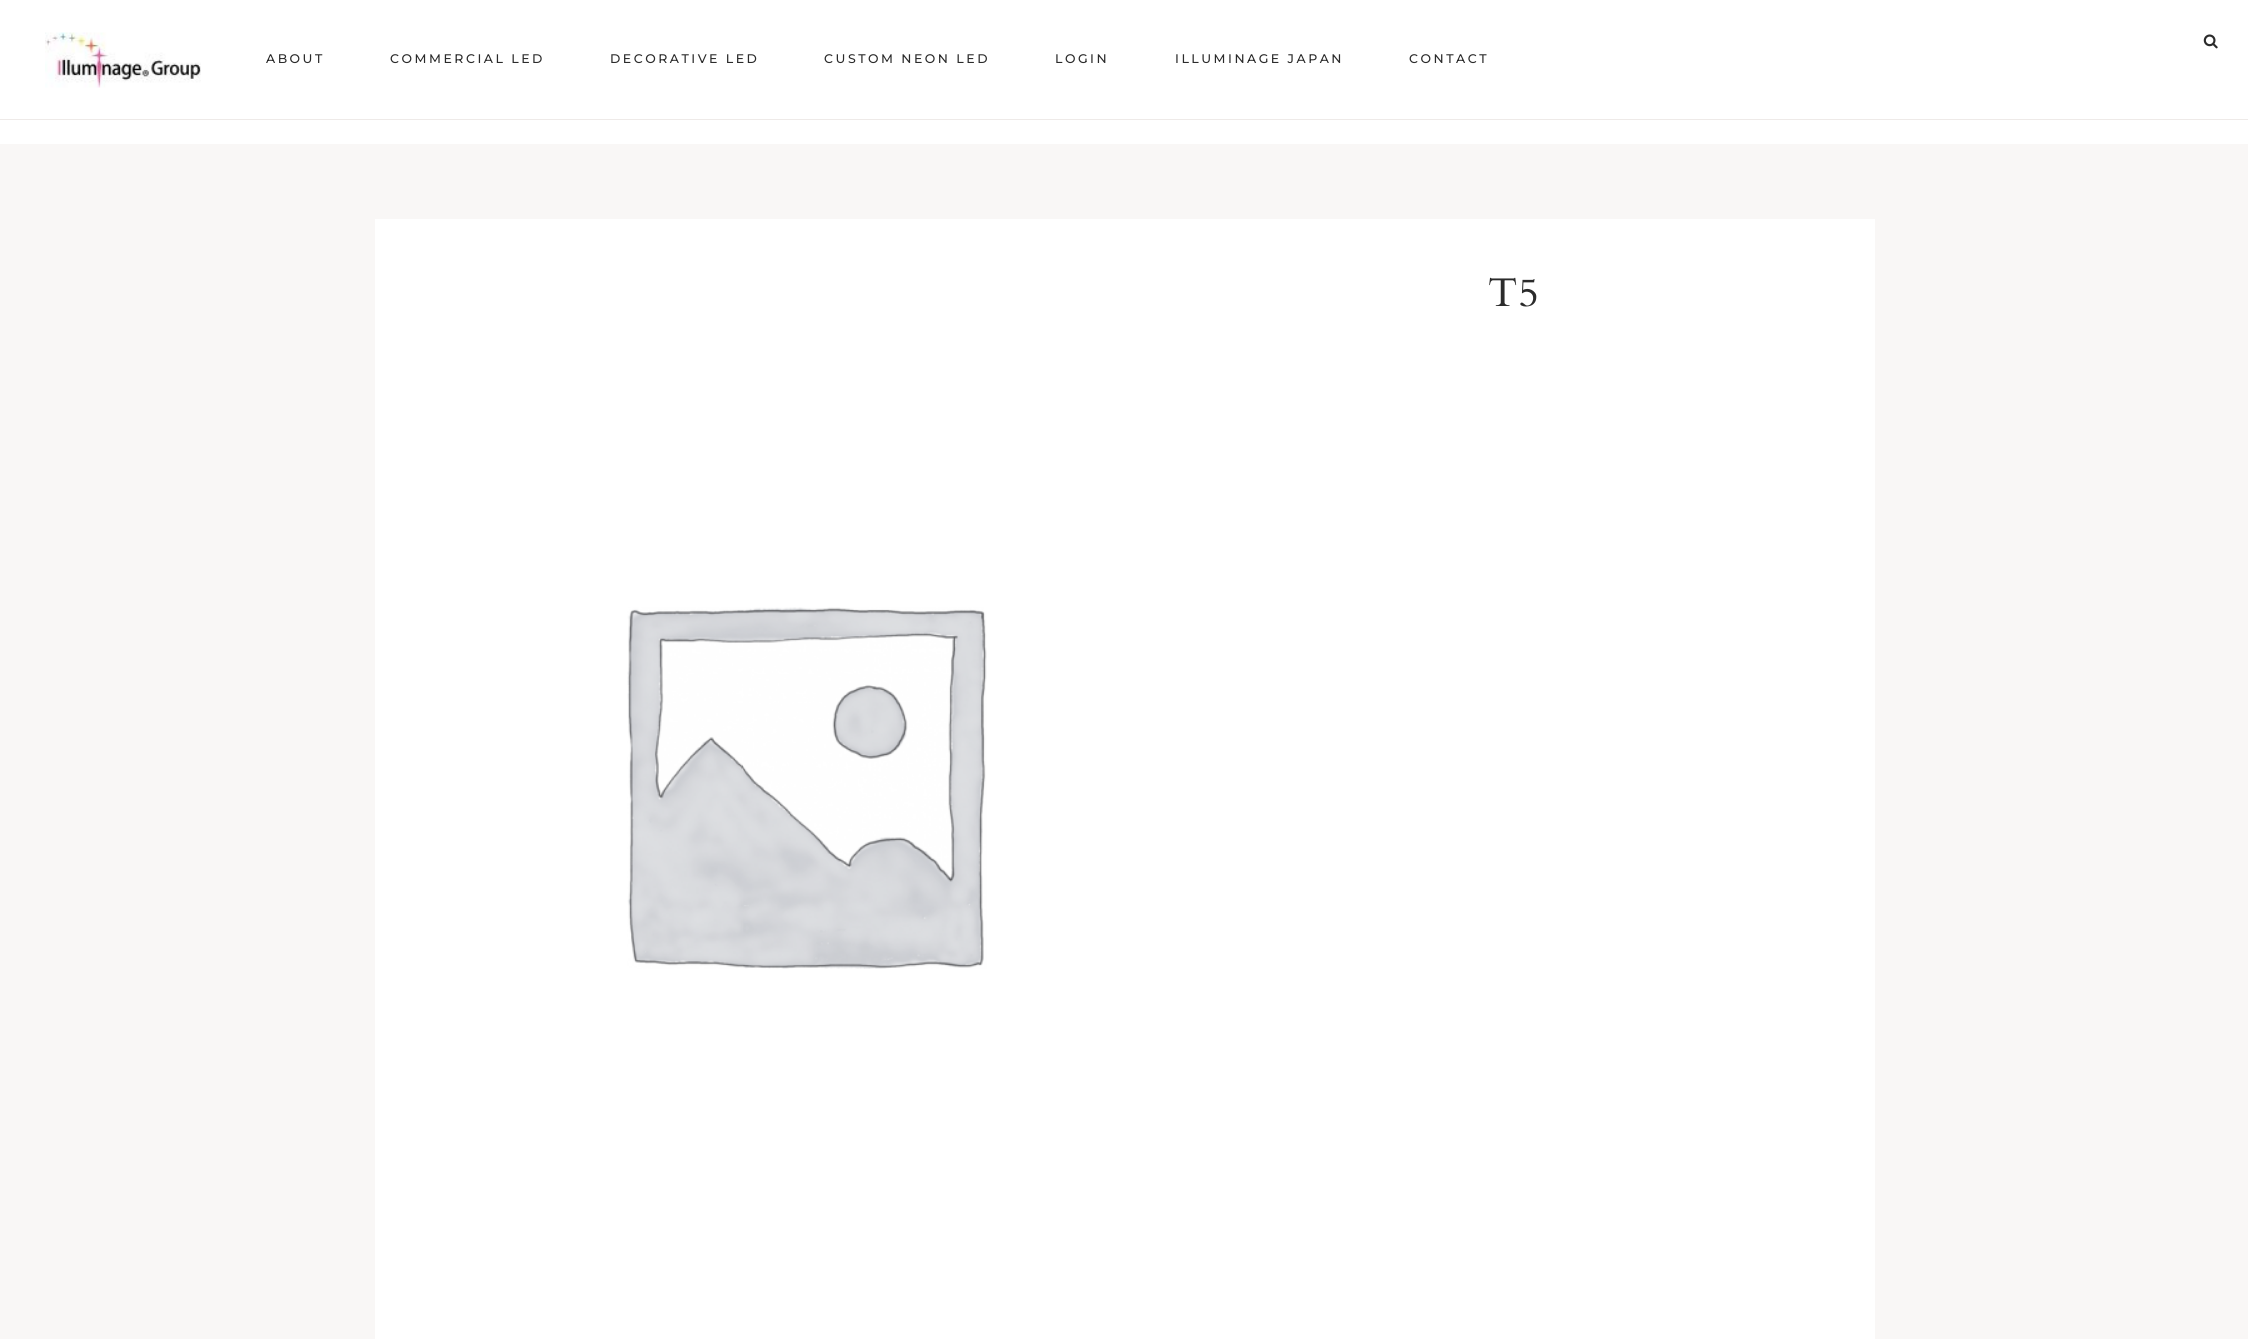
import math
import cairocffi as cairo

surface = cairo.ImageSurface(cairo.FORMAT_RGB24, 2248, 1339)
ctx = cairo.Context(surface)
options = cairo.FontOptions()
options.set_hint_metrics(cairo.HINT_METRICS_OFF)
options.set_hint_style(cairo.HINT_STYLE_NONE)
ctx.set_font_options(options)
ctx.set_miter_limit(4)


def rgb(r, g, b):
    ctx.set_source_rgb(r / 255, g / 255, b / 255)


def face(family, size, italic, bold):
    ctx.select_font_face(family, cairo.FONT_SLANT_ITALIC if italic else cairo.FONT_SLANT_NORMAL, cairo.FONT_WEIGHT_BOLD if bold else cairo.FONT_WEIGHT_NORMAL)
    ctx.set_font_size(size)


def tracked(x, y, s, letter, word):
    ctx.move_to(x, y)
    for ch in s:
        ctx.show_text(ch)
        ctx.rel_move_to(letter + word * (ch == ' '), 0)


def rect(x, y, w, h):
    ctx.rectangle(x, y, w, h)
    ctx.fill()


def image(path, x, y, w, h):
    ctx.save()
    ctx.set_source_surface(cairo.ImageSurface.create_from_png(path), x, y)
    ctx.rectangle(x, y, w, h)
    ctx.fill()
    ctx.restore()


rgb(255, 255, 255)
ctx.paint()
rgb(238, 234, 232)
rect(0, 119, 2248, 1)
image('image0.png', 45, 32, 156, 56)
image('image1.png', 2203, 34, 15, 15)
face('Montserrat Thin', 12.5, 0, 0)
rgb(43, 43, 43)
tracked(266, 63, 'ABOUT', 2.5, 0)
tracked(390, 63, 'COMMERCIAL LED', 2.5, 0)
tracked(610, 63, 'DECORATIVE LED', 2.5, 0)
tracked(824, 63, 'CUSTOM NEON LED', 2.5, 0)
tracked(1055, 63, 'LOGIN', 2.5, 0)
tracked(1175, 63, 'ILLUMINAGE JAPAN', 2.5, 0)
tracked(1409, 63, 'CONTACT', 2.5, 0)
rgb(249, 247, 246)
rect(0, 144, 2248, 1195)
rgb(255, 255, 255)
rect(375, 219, 1500, 1120)
face('Cardo', 40, 0, 0)
rgb(43, 43, 43)
tracked(1488, 306, 'T5', 1, 0)
image('image2.png', 627, 607, 360, 362)
surface.write_to_png('render.png')
